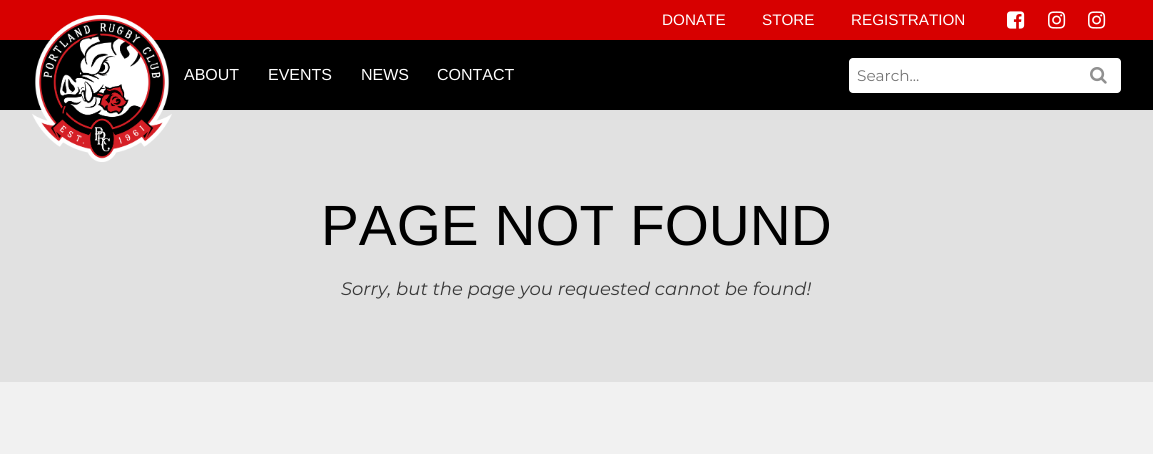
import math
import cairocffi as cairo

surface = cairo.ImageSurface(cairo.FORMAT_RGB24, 1153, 454)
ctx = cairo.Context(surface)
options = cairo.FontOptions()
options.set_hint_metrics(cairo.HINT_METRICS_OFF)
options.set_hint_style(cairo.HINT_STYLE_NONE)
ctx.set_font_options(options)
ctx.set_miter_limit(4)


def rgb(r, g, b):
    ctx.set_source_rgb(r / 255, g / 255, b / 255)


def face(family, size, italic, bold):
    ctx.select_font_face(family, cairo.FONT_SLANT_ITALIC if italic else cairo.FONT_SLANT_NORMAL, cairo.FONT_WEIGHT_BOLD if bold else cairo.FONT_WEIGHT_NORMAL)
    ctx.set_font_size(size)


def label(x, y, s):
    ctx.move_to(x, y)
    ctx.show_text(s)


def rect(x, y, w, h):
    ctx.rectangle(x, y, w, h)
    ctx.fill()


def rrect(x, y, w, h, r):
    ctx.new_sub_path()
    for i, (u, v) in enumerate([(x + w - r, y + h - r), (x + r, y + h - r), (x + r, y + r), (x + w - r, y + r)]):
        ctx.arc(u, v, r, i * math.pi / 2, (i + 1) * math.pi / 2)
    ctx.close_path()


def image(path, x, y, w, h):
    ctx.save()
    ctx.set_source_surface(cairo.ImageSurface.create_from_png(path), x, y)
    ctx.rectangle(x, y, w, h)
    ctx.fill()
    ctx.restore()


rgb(215, 0, 0)
ctx.paint()
face('Liberation Sans', 15.25, 0, 0)
rgb(255, 255, 255)
label(662, 25, 'DONATE')
label(762, 25, 'STORE')
label(851, 25, 'REGISTRATION')
image('image0.png', 1007, 11, 18, 18)
image('image1.png', 1048, 11, 18, 18)
image('image1.png', 1088, 11, 18, 18)
rgb(0, 0, 0)
rect(0, 40, 1153, 70)
rgb(225, 225, 225)
rect(0, 110, 1153, 272)
image('image2.png', 32, 15, 140, 147)
face('Liberation Sans', 16, 0, 0)
rgb(255, 255, 255)
label(184, 80, 'ABOUT')
label(268, 80, 'EVENTS')
label(361, 80, 'NEWS')
label(437, 80, 'CONTACT')
rrect(849, 58, 272, 35, 4)
ctx.fill()
face('Montserrat', 15.25, 0, 0)
rgb(117, 117, 117)
label(857, 81, 'Search...')
image('image3.png', 1090, 67, 17, 17)
rgb(241, 241, 241)
rect(0, 382, 1153, 72)
face('Liberation Sans', 56.75, 0, 0)
rgb(0, 0, 0)
label(321, 245, 'PAGE NOT FOUND')
face('Montserrat', 18, 1, 0)
rgb(56, 56, 56)
label(341, 295, 'Sorry, but the page you requested cannot be found!')
surface.write_to_png('render.png')
